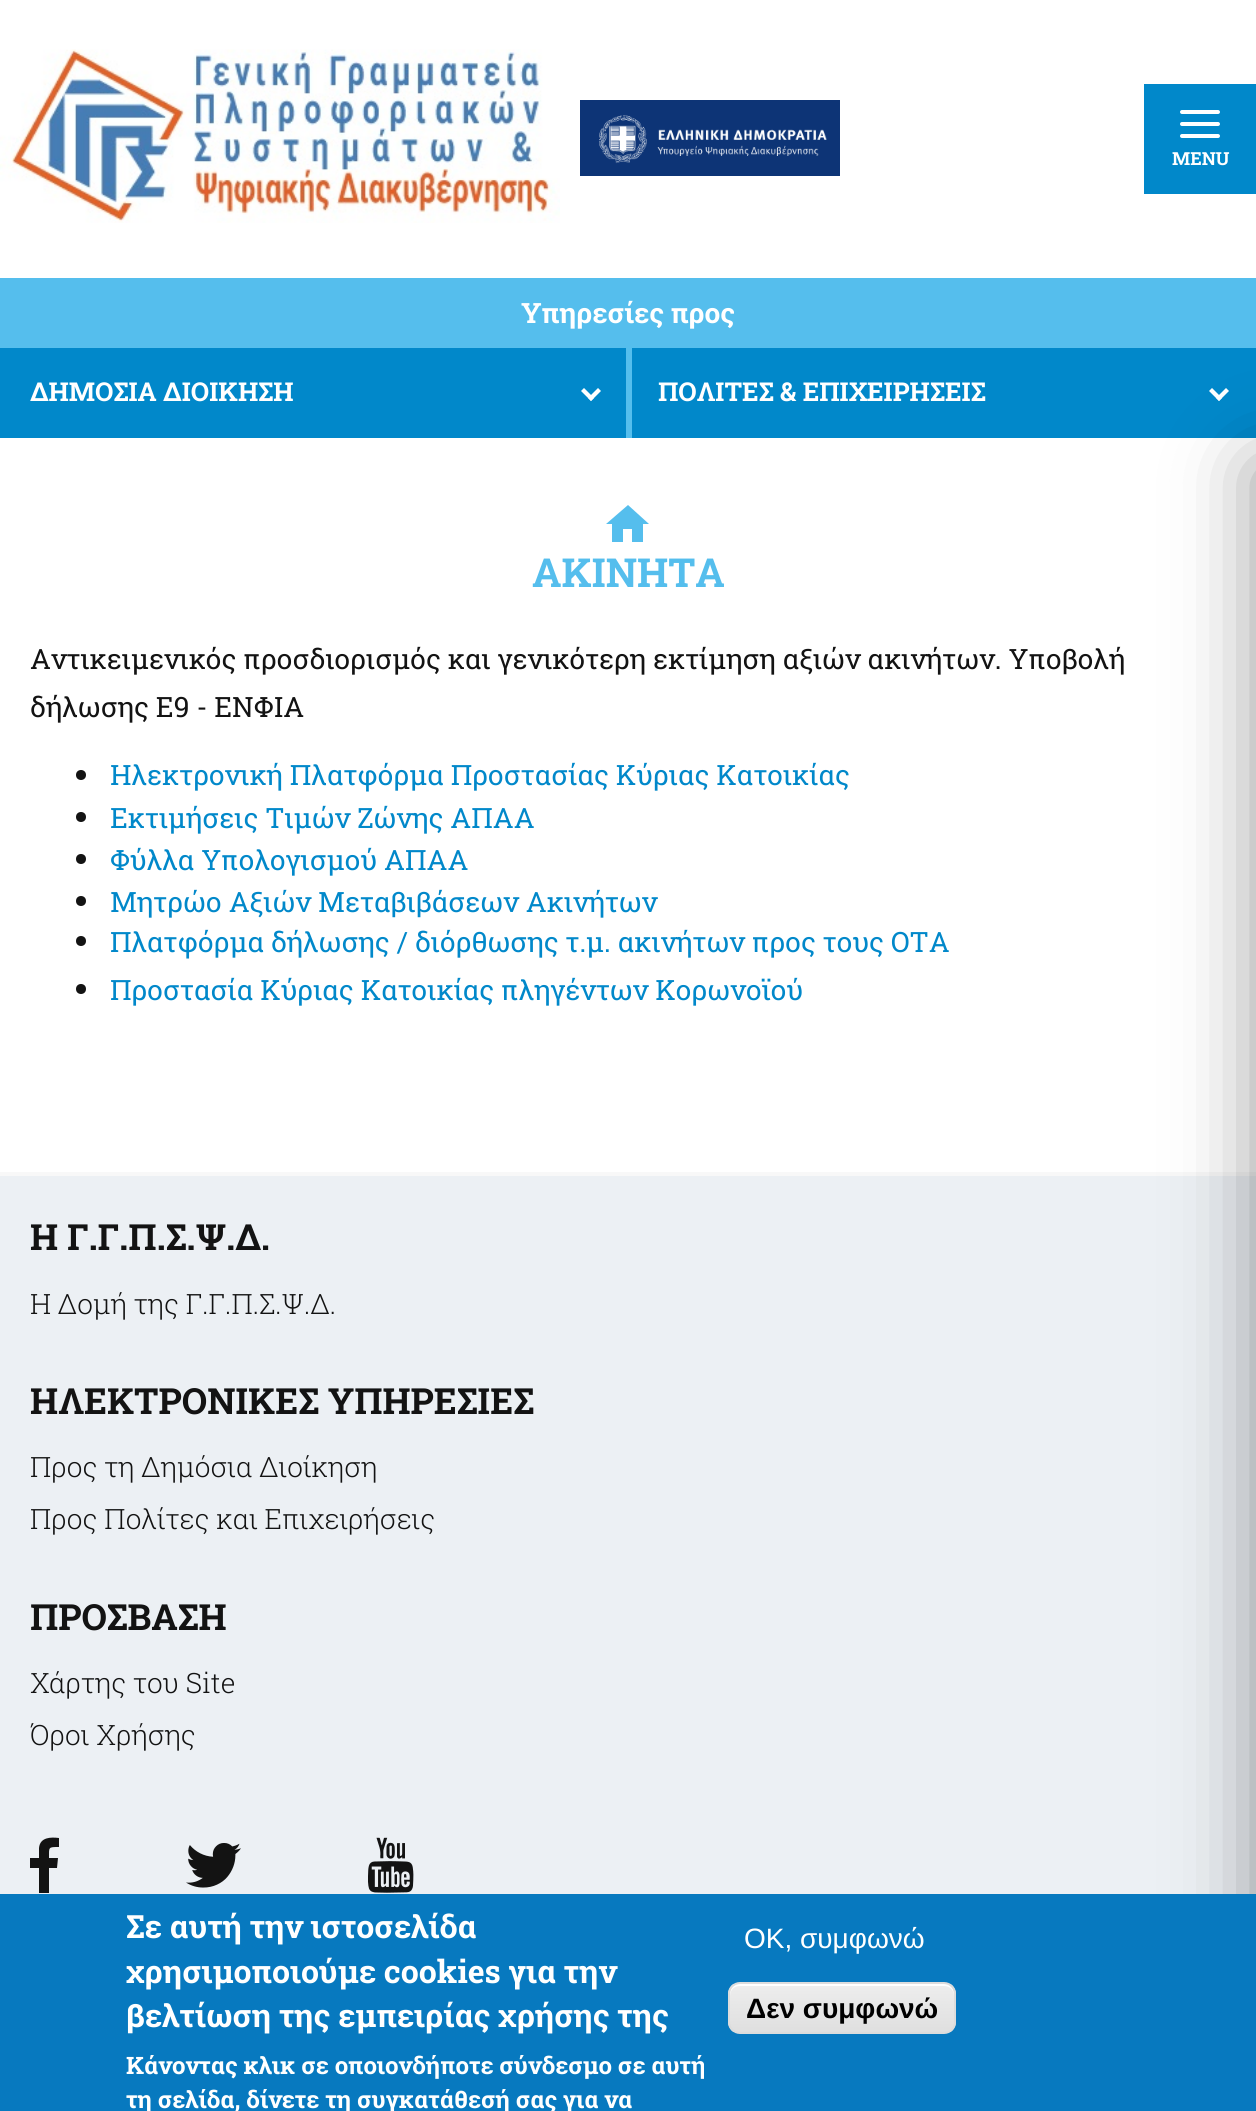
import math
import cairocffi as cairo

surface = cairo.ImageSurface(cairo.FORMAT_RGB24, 1256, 2111)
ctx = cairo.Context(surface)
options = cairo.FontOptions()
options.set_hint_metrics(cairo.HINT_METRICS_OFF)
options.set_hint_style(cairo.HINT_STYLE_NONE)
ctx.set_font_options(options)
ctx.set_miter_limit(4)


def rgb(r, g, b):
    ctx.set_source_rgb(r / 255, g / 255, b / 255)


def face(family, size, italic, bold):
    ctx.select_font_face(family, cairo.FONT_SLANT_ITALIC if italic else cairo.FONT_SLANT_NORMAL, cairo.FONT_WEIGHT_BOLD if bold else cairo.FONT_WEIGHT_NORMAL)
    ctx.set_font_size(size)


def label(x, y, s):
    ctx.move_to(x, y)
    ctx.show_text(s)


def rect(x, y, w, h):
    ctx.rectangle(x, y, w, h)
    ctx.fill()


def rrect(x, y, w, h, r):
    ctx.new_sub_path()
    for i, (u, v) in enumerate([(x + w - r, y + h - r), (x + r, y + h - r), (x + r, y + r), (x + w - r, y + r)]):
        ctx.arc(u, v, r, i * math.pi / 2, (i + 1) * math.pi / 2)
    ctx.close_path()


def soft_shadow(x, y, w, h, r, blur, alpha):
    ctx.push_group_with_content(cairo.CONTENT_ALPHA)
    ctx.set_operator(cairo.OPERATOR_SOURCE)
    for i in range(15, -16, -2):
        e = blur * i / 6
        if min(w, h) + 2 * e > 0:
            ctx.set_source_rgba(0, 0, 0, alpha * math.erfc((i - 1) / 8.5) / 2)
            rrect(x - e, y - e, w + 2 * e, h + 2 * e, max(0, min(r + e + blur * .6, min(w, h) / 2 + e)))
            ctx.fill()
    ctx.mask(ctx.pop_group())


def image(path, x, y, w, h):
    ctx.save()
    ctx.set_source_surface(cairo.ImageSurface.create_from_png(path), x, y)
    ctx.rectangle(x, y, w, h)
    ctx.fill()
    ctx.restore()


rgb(255, 255, 255)
ctx.paint()
image('image0.png', 0, 49, 560, 174)
image('image1.png', 580, 100, 260, 76)
rgb(1, 136, 202)
rect(1144, 84, 112, 110)
rgb(255, 255, 255)
rrect(1180, 110, 40, 4, 2)
ctx.fill()
rrect(1180, 122, 40, 4, 2)
ctx.fill()
rrect(1180, 134, 40, 4, 2)
ctx.fill()
face('Roboto Slab', 18, 0, 1)
label(1172, 165, 'MENU')
rgb(85, 190, 237)
rect(0, 278, 1256, 70)
face('Roboto Slab', 28, 0, 1)
rgb(255, 255, 255)
label(521, 323, 'Υπηρεσίες προς')
rgb(1, 136, 202)
rect(0, 348, 1256, 90)
face('Roboto Slab', 26, 0, 1)
rgb(255, 255, 255)
label(30, 401, 'ΔΗΜΟΣΙΑ ΔΙΟΙΚΗΣΗ')
ctx.new_path()
ctx.move_to(598, 388)
ctx.line_to(601, 391)
ctx.line_to(591, 401)
ctx.line_to(588, 398)
ctx.close_path()
ctx.fill()
ctx.new_path()
ctx.move_to(584, 388)
ctx.line_to(594, 398)
ctx.line_to(591, 401)
ctx.line_to(581, 391)
ctx.close_path()
ctx.fill()
rgb(85, 190, 237)
rect(626, 348, 6, 90)
rgb(255, 255, 255)
label(658, 401, 'ΠΟΛΙΤΕΣ & ΕΠΙΧΕΙΡΗΣΕΙΣ')
ctx.new_path()
ctx.move_to(1226, 388)
ctx.line_to(1229, 391)
ctx.line_to(1219, 401)
ctx.line_to(1216, 398)
ctx.close_path()
ctx.fill()
ctx.new_path()
ctx.move_to(1212, 388)
ctx.line_to(1222, 398)
ctx.line_to(1219, 401)
ctx.line_to(1209, 391)
ctx.close_path()
ctx.fill()
rgb(248, 248, 248)
rect(0, 1172, 1256, 4)
rgb(236, 240, 244)
rect(0, 1176, 1256, 718)
rgb(0, 0, 0)
soft_shadow(1256, 468, 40, 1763, 0, 40, 0.4)
rgb(85, 190, 237)
ctx.new_path()
ctx.move_to(623, 542)
ctx.line_to(612, 542)
ctx.line_to(612, 524)
ctx.line_to(606, 524)
ctx.line_to(628, 505)
ctx.line_to(649, 524)
ctx.line_to(643, 524)
ctx.line_to(643, 542)
ctx.line_to(632, 542)
ctx.line_to(632, 529)
ctx.line_to(623, 529)
ctx.close_path()
ctx.fill()
face('Roboto Slab', 40, 0, 1)
label(532, 587, 'AKINHTA')
face('Roboto Slab', 28, 0, 0)
rgb(19, 19, 19)
label(30, 669, 'Αντικειμενικός προσδιορισμός και γενικότερη εκτίμηση αξιών ακινήτων. Υποβολή')
label(30, 717, 'δήλωσης Ε9 - ΕΝΦΙΑ')
ctx.new_path()
ctx.arc(81, 775, 5, 0, 2 * math.pi)
ctx.fill()
rgb(1, 136, 202)
label(110, 785, 'Ηλεκτρονική Πλατφόρμα Προστασίας Κύριας Κατοικίας')
rgb(19, 19, 19)
ctx.new_path()
ctx.arc(81, 817, 5, 0, 2 * math.pi)
ctx.fill()
rgb(1, 136, 202)
label(110, 828, 'Εκτιμήσεις Τιμών Ζώνης ΑΠΑΑ')
rgb(19, 19, 19)
ctx.new_path()
ctx.arc(81, 859, 5, 0, 2 * math.pi)
ctx.fill()
rgb(1, 136, 202)
label(110, 870, 'Φύλλα Υπολογισμού ΑΠΑΑ')
rgb(19, 19, 19)
ctx.new_path()
ctx.arc(81, 901, 5, 0, 2 * math.pi)
ctx.fill()
rgb(1, 136, 202)
label(110, 912, 'Μητρώο Αξιών Μεταβιβάσεων Ακινήτων')
rgb(19, 19, 19)
ctx.new_path()
ctx.arc(81, 941, 5, 0, 2 * math.pi)
ctx.fill()
rgb(1, 136, 202)
label(110, 952, 'Πλατφόρμα δήλωσης / διόρθωσης τ.μ. ακινήτων προς τους ΟΤΑ')
rgb(19, 19, 19)
ctx.new_path()
ctx.arc(81, 989, 5, 0, 2 * math.pi)
ctx.fill()
rgb(1, 136, 202)
label(110, 1000, 'Προστασία Κύριας Κατοικίας πληγέντων Κορωνοϊού')
face('Roboto Slab', 36, 0, 1)
rgb(19, 19, 19)
label(30, 1250, 'Η Γ.Γ.Π.Σ.Ψ.Δ.')
face('Roboto Slab Light', 28, 0, 0)
label(30, 1314, 'Η Δομή της Γ.Γ.Π.Σ.Ψ.Δ.')
face('Roboto Slab', 36, 0, 1)
label(30, 1414, 'ΗΛΕΚΤΡΟΝΙΚΕΣ ΥΠΗΡΕΣΙΕΣ')
face('Roboto Slab Light', 28, 0, 0)
label(30, 1477, 'Προς τη Δημόσια Διοίκηση')
label(30, 1529, 'Προς Πολίτες και Επιχειρήσεις')
face('Roboto Slab', 36, 0, 1)
label(30, 1630, 'ΠΡΟΣΒΑΣΗ')
face('Roboto Slab Light', 28, 0, 0)
label(30, 1693, 'Χάρτης του Site')
label(30, 1745, 'Όροι Xρήσης')
ctx.new_path()
ctx.move_to(49, 1893)
ctx.line_to(39, 1893)
ctx.line_to(39, 1868)
ctx.line_to(30, 1868)
ctx.line_to(30, 1858)
ctx.line_to(39, 1858)
ctx.line_to(39, 1848)
ctx.curve_to(40, 1837, 51, 1837, 59, 1838)
ctx.line_to(59, 1847)
ctx.curve_to(48, 1847, 49, 1847, 49, 1858)
ctx.line_to(58, 1858)
ctx.line_to(57, 1868)
ctx.line_to(49, 1868)
ctx.close_path()
ctx.fill()
image('image2.png', 186, 1843, 55, 45)
image('image3.png', 368, 1837, 46, 56)
rgb(7, 121, 191)
rect(0, 1894, 1256, 217)
face('Roboto Slab', 32, 0, 1)
rgb(255, 255, 255)
label(126, 1938, 'Σε αυτή την ιστοσελίδα')
label(126, 1983, 'χρησιμοποιούμε cookies για την')
label(126, 2027, 'βελτίωση της εμπειρίας χρήσης της')
face('Roboto Slab', 24, 0, 1)
label(126, 2074, 'Κάνοντας κλικ σε οποιονδήποτε σύνδεσμο σε αυτή')
label(126, 2108, 'τη σελίδα, δίνετε τη συγκατάθεσή σας για να')
face('Liberation Sans', 28, 0, 0)
label(744, 1948, 'OK, συμφωνώ')
ctx.save()
rrect(728, 1982, 228, 52, 12)
ctx.clip()
gradient = cairo.LinearGradient(842, 1984, 842, 2032)
gradient.add_color_stop_rgba(0.05, 0.929, 0.929, 0.929, 1)
gradient.add_color_stop_rgba(1, 0.875, 0.875, 0.875, 1)
ctx.set_source(gradient)
rect(728, 1984, 228, 48)
ctx.restore()
ctx.new_path()
ctx.move_to(740, 1986)
ctx.line_to(944, 1986)
ctx.curve_to(950, 1986, 954, 1990, 954, 1996)
ctx.line_to(954, 1994)
ctx.curve_to(954, 1988, 950, 1984, 944, 1984)
ctx.line_to(740, 1984)
ctx.curve_to(734, 1984, 730, 1988, 730, 1994)
ctx.line_to(730, 1996)
ctx.curve_to(730, 1990, 734, 1986, 740, 1986)
ctx.close_path()
ctx.fill()
rrect(729, 1983, 226, 50, 11)
rgb(220, 220, 220)
ctx.stroke()
face('Liberation Sans', 28, 0, 1)
rgb(0, 0, 0)
label(746, 2018, 'Δεν συμφωνώ')
surface.write_to_png('render.png')
